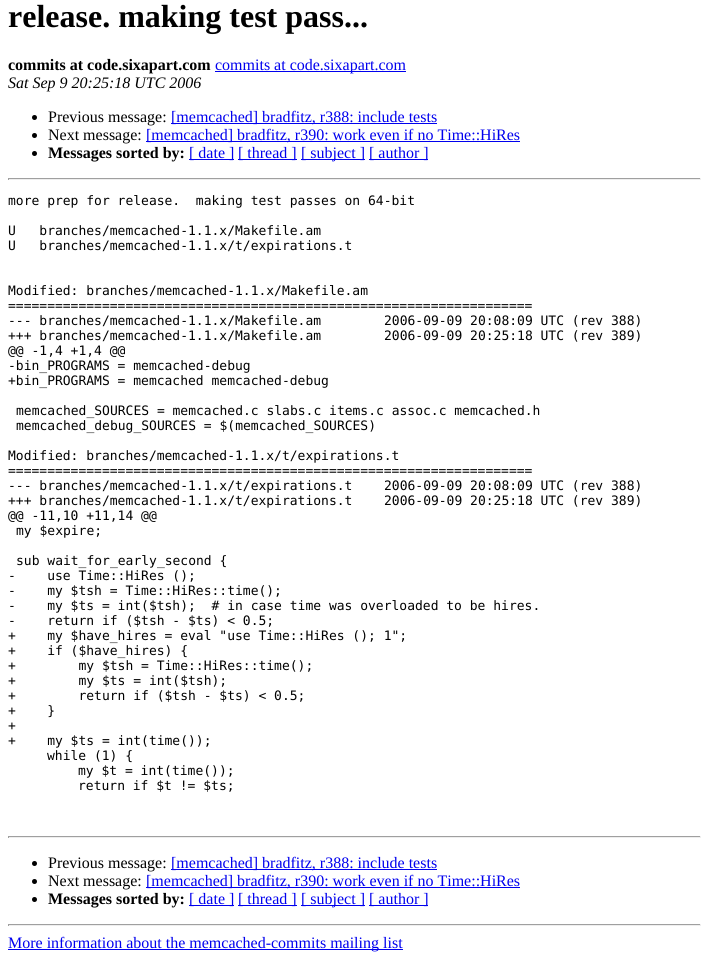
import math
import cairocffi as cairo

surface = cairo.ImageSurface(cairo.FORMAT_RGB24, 709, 960)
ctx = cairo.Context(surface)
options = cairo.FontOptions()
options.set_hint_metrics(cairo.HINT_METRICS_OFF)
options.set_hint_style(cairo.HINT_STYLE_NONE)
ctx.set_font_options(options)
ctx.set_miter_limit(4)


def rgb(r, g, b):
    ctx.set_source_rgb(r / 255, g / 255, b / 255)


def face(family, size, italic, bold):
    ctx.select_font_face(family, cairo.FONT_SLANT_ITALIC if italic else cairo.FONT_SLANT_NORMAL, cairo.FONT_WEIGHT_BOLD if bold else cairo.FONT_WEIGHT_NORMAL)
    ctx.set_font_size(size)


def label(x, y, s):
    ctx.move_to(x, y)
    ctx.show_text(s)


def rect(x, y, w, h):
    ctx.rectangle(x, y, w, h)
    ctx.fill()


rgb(255, 255, 255)
ctx.paint()
face('Liberation Serif', 32, 0, 1)
rgb(0, 0, 0)
label(8, 27, 'release. making test pass...')
face('Liberation Serif', 16, 0, 1)
label(8, 70, 'commits at code.sixapart.com')
rgb(0, 0, 238)
rect(215, 71, 191, 1)
face('Liberation Serif', 16, 0, 0)
label(215, 70, 'commits at code.sixapart.com')
face('Liberation Serif', 16, 1, 0)
rgb(0, 0, 0)
label(8, 88, 'Sat Sep 9 20:25:18 UTC 2006')
ctx.new_path()
ctx.arc(34.5, 117.5, 2.5, 0, 2 * math.pi)
ctx.fill()
face('Liberation Serif', 16, 0, 0)
label(48, 122, 'Previous message:')
rgb(0, 0, 238)
rect(171, 123, 266, 1)
label(171, 122, '[memcached] bradfitz, r388: include tests')
rgb(0, 0, 0)
ctx.new_path()
ctx.arc(34.5, 135.5, 2.5, 0, 2 * math.pi)
ctx.fill()
label(48, 140, 'Next message:')
rgb(0, 0, 238)
rect(146, 141, 374, 1)
label(146, 140, '[memcached] bradfitz, r390: work even if no Time::HiRes')
rgb(0, 0, 0)
ctx.new_path()
ctx.arc(34.5, 153.5, 2.5, 0, 2 * math.pi)
ctx.fill()
face('Liberation Serif', 16, 0, 1)
label(48, 158, 'Messages sorted by:')
rgb(0, 0, 238)
rect(189, 159, 45, 1)
face('Liberation Serif', 16, 0, 0)
label(189, 158, '[ date ]')
rect(238, 159, 59, 1)
label(238, 158, '[ thread ]')
rect(301, 159, 64, 1)
label(301, 158, '[ subject ]')
rect(369, 159, 59, 1)
label(369, 158, '[ author ]')
rgb(159, 159, 159)
rect(8, 178, 693, 1)
rgb(238, 238, 238)
rect(700, 178, 1, 2)
rect(8, 179, 693, 1)
rgb(159, 159, 159)
rect(8, 178, 1, 2)
face('DejaVu Sans Mono', 13, 0, 0)
rgb(0, 0, 0)
label(8, 205, 'more prep for release.  making test passes on 64-bit')
label(8, 235, 'U   branches/memcached-1.1.x/Makefile.am')
label(8, 250, 'U   branches/memcached-1.1.x/t/expirations.t')
label(8, 295, 'Modified: branches/memcached-1.1.x/Makefile.am')
label(8, 310, '===================================================================')
label(8, 325, '--- branches/memcached-1.1.x/Makefile.am')
label(384, 325, '2006-09-09 20:08:09 UTC (rev 388)')
label(8, 340, '+++ branches/memcached-1.1.x/Makefile.am')
label(384, 340, '2006-09-09 20:25:18 UTC (rev 389)')
label(8, 355, '@@ -1,4 +1,4 @@')
label(8, 370, '-bin_PROGRAMS = memcached-debug')
label(8, 385, '+bin_PROGRAMS = memcached memcached-debug')
label(16, 415, 'memcached_SOURCES = memcached.c slabs.c items.c assoc.c memcached.h')
label(16, 430, 'memcached_debug_SOURCES = $(memcached_SOURCES)')
label(8, 460, 'Modified: branches/memcached-1.1.x/t/expirations.t')
label(8, 475, '===================================================================')
label(8, 490, '--- branches/memcached-1.1.x/t/expirations.t')
label(384, 490, '2006-09-09 20:08:09 UTC (rev 388)')
label(8, 505, '+++ branches/memcached-1.1.x/t/expirations.t')
label(384, 505, '2006-09-09 20:25:18 UTC (rev 389)')
label(8, 520, '@@ -11,10 +11,14 @@')
label(16, 535, 'my $expire;')
label(16, 565, 'sub wait_for_early_second {')
label(8, 580, '-    use Time::HiRes ();')
label(8, 595, '-    my $tsh = Time::HiRes::time();')
label(8, 610, '-    my $ts = int($tsh);  # in case time was overloaded to be hires.')
label(8, 625, '-    return if ($tsh - $ts) < 0.5;')
label(8, 640, '+    my $have_hires = eval "use Time::HiRes (); 1";')
label(8, 655, '+    if ($have_hires) {')
label(8, 670, '+        my $tsh = Time::HiRes::time();')
label(8, 685, '+        my $ts = int($tsh);')
label(8, 700, '+        return if ($tsh - $ts) < 0.5;')
label(8, 715, '+    }')
label(8, 730, '+')
label(8, 745, '+    my $ts = int(time());')
label(47, 760, 'while (1) {')
label(78, 775, 'my $t = int(time());')
label(78, 790, 'return if $t != $ts;')
rgb(159, 159, 159)
rect(8, 836, 693, 1)
rgb(238, 238, 238)
rect(700, 836, 1, 2)
rect(8, 837, 693, 1)
rgb(159, 159, 159)
rect(8, 836, 1, 2)
rgb(0, 0, 0)
ctx.new_path()
ctx.arc(34.5, 863.5, 2.5, 0, 2 * math.pi)
ctx.fill()
face('Liberation Serif', 16, 0, 0)
label(48, 868, 'Previous message:')
rgb(0, 0, 238)
rect(171, 869, 266, 1)
label(171, 868, '[memcached] bradfitz, r388: include tests')
rgb(0, 0, 0)
ctx.new_path()
ctx.arc(34.5, 881.5, 2.5, 0, 2 * math.pi)
ctx.fill()
label(48, 886, 'Next message:')
rgb(0, 0, 238)
rect(146, 887, 374, 1)
label(146, 886, '[memcached] bradfitz, r390: work even if no Time::HiRes')
rgb(0, 0, 0)
ctx.new_path()
ctx.arc(34.5, 899.5, 2.5, 0, 2 * math.pi)
ctx.fill()
face('Liberation Serif', 16, 0, 1)
label(48, 904, 'Messages sorted by:')
rgb(0, 0, 238)
rect(189, 905, 45, 1)
face('Liberation Serif', 16, 0, 0)
label(189, 904, '[ date ]')
rect(238, 905, 59, 1)
label(238, 904, '[ thread ]')
rect(301, 905, 64, 1)
label(301, 904, '[ subject ]')
rect(369, 905, 59, 1)
label(369, 904, '[ author ]')
rgb(159, 159, 159)
rect(8, 924, 693, 1)
rgb(238, 238, 238)
rect(700, 924, 1, 2)
rect(8, 925, 693, 1)
rgb(159, 159, 159)
rect(8, 924, 1, 2)
rgb(0, 0, 238)
rect(8, 949, 395, 1)
label(8, 948, 'More information about the memcached-commits mailing list')
surface.write_to_png('render.png')
